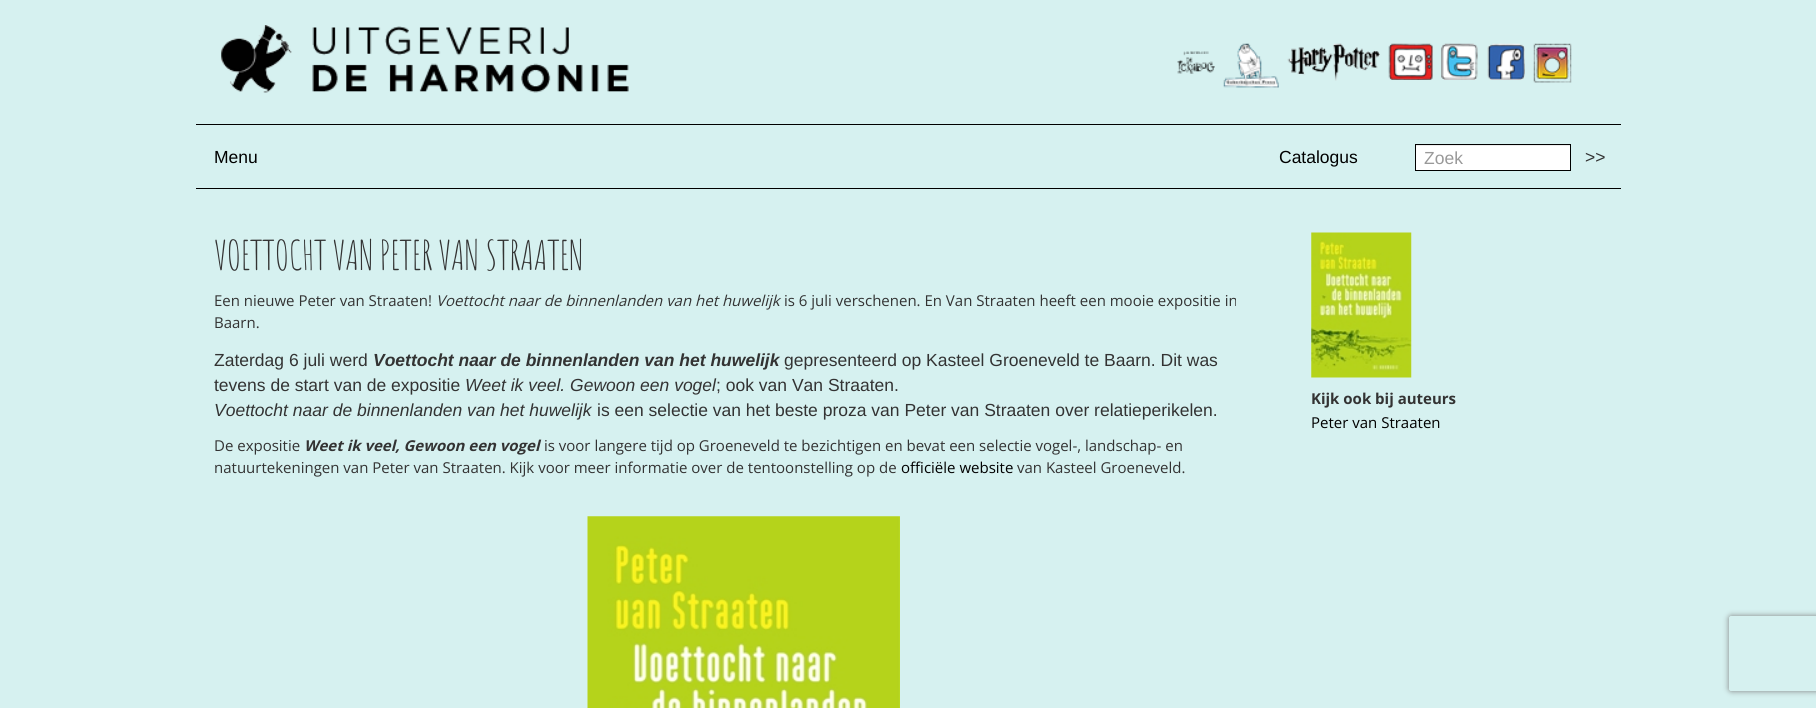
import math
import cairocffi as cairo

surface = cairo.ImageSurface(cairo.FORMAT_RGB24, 1816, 708)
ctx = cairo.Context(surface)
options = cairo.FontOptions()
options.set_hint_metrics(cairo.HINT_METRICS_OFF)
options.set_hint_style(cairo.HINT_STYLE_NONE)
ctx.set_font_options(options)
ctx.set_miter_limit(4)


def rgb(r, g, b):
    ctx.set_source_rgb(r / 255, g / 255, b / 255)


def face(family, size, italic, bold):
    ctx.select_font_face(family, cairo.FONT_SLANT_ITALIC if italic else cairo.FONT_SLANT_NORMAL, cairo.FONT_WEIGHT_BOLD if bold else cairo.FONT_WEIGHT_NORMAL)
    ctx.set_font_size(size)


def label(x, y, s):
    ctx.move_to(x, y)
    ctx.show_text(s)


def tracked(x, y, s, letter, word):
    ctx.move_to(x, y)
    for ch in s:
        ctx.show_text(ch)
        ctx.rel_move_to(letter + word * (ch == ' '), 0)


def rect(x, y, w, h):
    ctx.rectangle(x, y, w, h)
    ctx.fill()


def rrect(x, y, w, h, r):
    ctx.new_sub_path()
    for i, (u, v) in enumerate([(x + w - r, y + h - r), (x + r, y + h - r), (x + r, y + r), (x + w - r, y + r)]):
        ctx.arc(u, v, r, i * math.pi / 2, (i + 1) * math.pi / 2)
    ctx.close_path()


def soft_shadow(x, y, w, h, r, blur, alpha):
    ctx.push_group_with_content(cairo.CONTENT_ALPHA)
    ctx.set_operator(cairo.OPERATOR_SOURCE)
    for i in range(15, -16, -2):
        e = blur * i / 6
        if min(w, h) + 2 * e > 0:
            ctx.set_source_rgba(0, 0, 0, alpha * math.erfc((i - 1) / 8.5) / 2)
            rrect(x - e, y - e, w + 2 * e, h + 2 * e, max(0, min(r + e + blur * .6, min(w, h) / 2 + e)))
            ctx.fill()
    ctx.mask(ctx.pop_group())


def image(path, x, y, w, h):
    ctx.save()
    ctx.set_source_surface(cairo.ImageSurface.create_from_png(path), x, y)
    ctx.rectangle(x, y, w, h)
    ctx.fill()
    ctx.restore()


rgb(214, 241, 240)
ctx.paint()
image('image0.png', 221, 25, 408, 68)
image('image1.png', 1177, 51, 38, 23)
image('image2.png', 1223, 43, 56, 45)
image('image3.png', 1287, 43, 93, 38)
image('image4.png', 1388, 43, 45, 37)
image('image5.png', 1441, 43, 37, 37)
image('image6.png', 1487, 43, 38, 37)
image('image7.png', 1533, 43, 39, 40)
rgb(0, 0, 0)
rect(196, 124, 1425, 1)
face('Liberation Sans', 17.5, 0, 0)
label(214, 163, 'Menu')
label(1279, 163, 'Catalogus')
rgb(255, 255, 255)
rect(1416, 146, 154, 24)
rgb(236, 236, 236)
rect(1416, 145, 154, 1)
ctx.rectangle(1415.5, 144.5, 155, 26)
rgb(0, 0, 0)
ctx.set_line_width(1)
ctx.stroke()
rgb(153, 153, 153)
label(1424, 164, 'Zoek')
rgb(51, 51, 51)
label(1585, 163, '>>')
rgb(0, 0, 0)
rect(196, 188, 1425, 1)
face('Amatic SC', 40.25, 0, 0)
rgb(51, 51, 51)
tracked(214, 270, 'VOETTOCHT VAN PETER VAN STRAATEN', -0.6, 0)
face('Open Sans', 15, 0, 0)
label(214, 306, 'Een nieuwe Peter van Straaten!')
face('Open Sans', 15, 1, 0)
label(436, 306, 'Voettocht naar de binnenlanden van het huwelijk')
face('Open Sans', 15, 0, 0)
label(784, 306, 'is 6 juli verschenen. En Van Straaten heeft een mooie expositie in')
label(214, 328, 'Baarn.')
face('Liberation Sans', 17.5, 0, 0)
label(214, 366, 'Zaterdag 6 juli werd')
face('Liberation Sans', 17.5, 1, 1)
label(373, 366, 'Voettocht naar de binnenlanden van het huwelijk')
face('Liberation Sans', 17.5, 0, 0)
label(784, 366, 'gepresenteerd op Kasteel Groeneveld te Baarn. Dit was')
label(214, 391, 'tevens de start van de expositie')
face('Liberation Sans', 17.5, 1, 0)
label(465, 391, 'Weet ik veel. Gewoon een vogel')
face('Liberation Sans', 17.5, 0, 0)
label(716, 391, '; ook van Van Straaten.')
face('Liberation Sans', 17.5, 1, 0)
label(214, 416, 'Voettocht naar de binnenlanden van het huwelijk')
face('Liberation Sans', 17.5, 0, 0)
label(597, 416, 'is een selectie van het beste proza van Peter van Straaten over relatieperikelen.')
face('Open Sans', 15, 0, 0)
label(214, 451, 'De expositie')
face('Open Sans', 15, 1, 1)
label(304, 451, 'Weet ik veel, Gewoon een vogel')
face('Open Sans', 15, 0, 0)
label(544, 451, 'is voor langere tijd op Groeneveld te bezichtigen en bevat een selectie vogel-, landschap- en')
label(214, 473, 'natuurtekeningen van Peter van Straaten. Kijk voor meer informatie over de tentoonstelling op de')
rgb(0, 0, 0)
label(901, 473, 'officiële website')
rgb(51, 51, 51)
label(1017, 473, 'van Kasteel Groeneveld.')
image('image8.png', 587, 516, 313, 192)
image('image9.png', 1311, 232, 101, 146)
face('Open Sans', 15, 0, 1)
label(1311, 404, 'Kijk ook bij auteurs')
face('Open Sans', 15, 0, 0)
rgb(0, 0, 0)
label(1311, 428, 'Peter van Straaten')
ctx.save()
ctx.set_fill_rule(cairo.FILL_RULE_EVEN_ODD)
ctx.new_path()
ctx.move_to(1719, 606)
ctx.line_to(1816, 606)
ctx.line_to(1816, 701)
ctx.line_to(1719, 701)
ctx.close_path()
ctx.move_to(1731.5, 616)
ctx.line_to(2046.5, 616)
ctx.curve_to(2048, 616, 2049, 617, 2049, 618.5)
ctx.line_to(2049, 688.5)
ctx.curve_to(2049, 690, 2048, 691, 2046.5, 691)
ctx.line_to(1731.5, 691)
ctx.curve_to(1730, 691, 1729, 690, 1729, 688.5)
ctx.line_to(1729, 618.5)
ctx.curve_to(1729, 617, 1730, 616, 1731.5, 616)
ctx.close_path()
ctx.clip()
rgb(128, 128, 128)
soft_shadow(1729, 616, 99, 75, 2.5, 3, 1)
ctx.restore()
surface.write_to_png('render.png')
